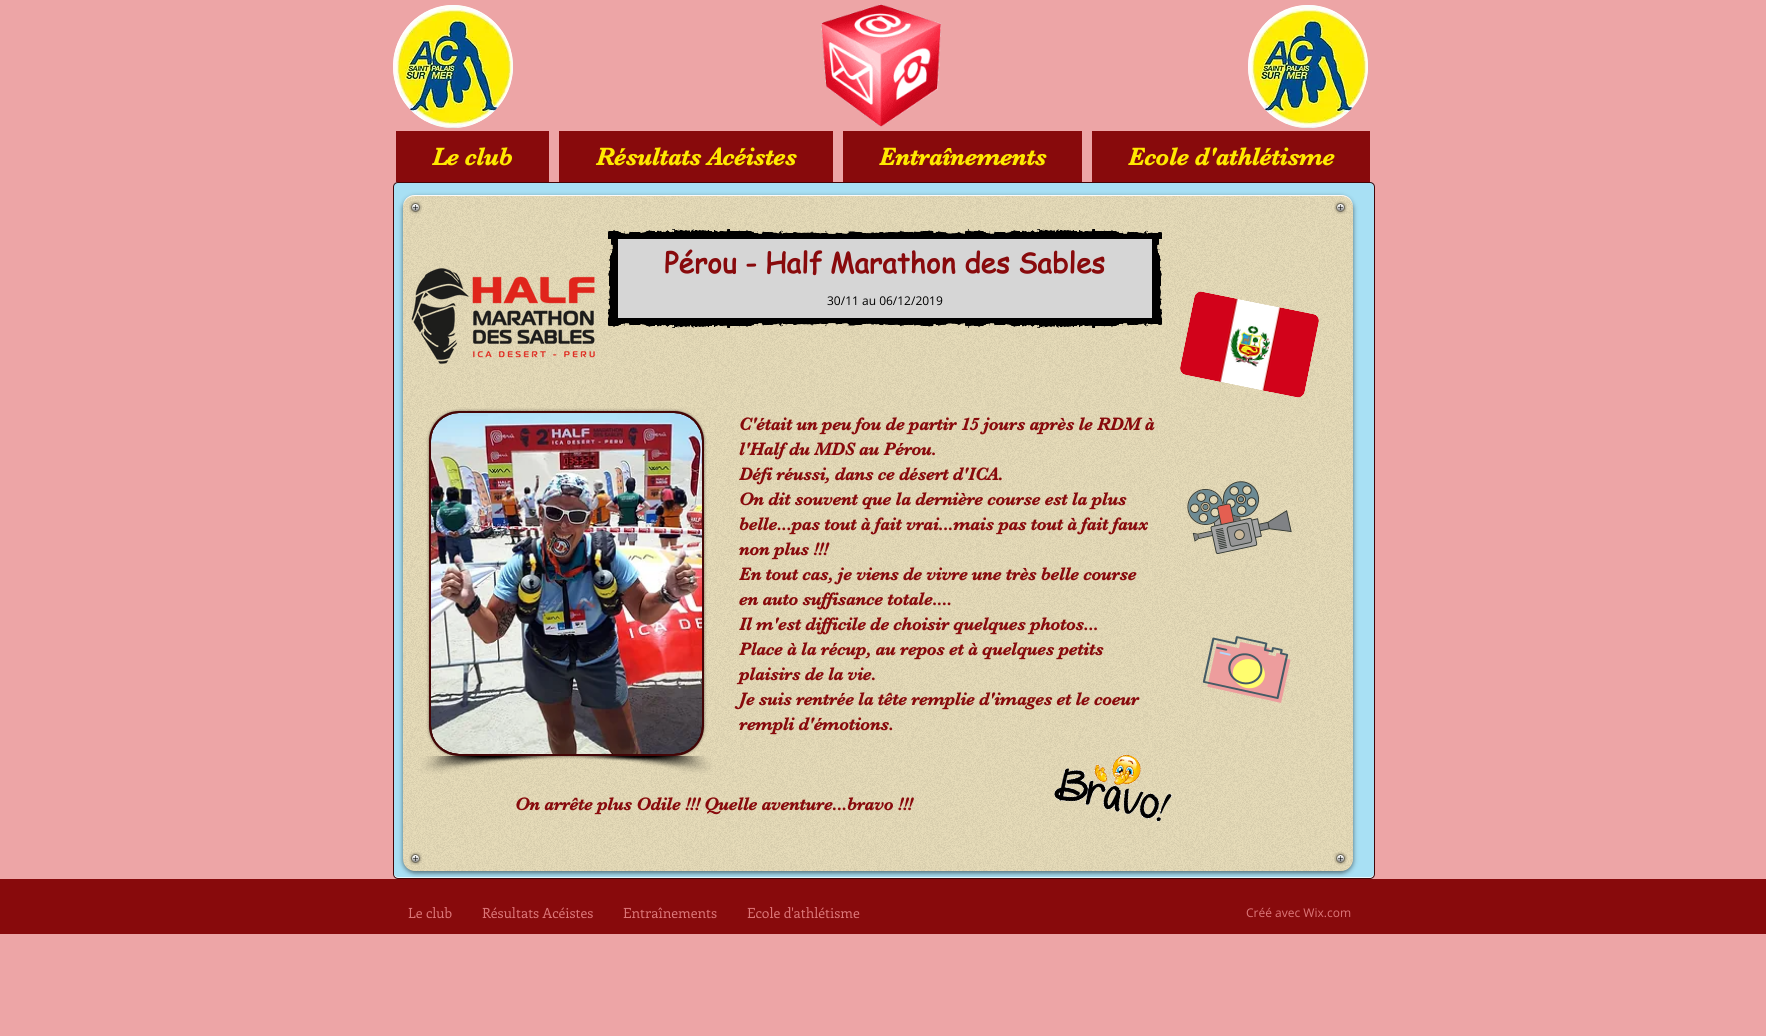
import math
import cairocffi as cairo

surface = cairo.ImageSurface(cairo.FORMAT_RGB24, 1766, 1036)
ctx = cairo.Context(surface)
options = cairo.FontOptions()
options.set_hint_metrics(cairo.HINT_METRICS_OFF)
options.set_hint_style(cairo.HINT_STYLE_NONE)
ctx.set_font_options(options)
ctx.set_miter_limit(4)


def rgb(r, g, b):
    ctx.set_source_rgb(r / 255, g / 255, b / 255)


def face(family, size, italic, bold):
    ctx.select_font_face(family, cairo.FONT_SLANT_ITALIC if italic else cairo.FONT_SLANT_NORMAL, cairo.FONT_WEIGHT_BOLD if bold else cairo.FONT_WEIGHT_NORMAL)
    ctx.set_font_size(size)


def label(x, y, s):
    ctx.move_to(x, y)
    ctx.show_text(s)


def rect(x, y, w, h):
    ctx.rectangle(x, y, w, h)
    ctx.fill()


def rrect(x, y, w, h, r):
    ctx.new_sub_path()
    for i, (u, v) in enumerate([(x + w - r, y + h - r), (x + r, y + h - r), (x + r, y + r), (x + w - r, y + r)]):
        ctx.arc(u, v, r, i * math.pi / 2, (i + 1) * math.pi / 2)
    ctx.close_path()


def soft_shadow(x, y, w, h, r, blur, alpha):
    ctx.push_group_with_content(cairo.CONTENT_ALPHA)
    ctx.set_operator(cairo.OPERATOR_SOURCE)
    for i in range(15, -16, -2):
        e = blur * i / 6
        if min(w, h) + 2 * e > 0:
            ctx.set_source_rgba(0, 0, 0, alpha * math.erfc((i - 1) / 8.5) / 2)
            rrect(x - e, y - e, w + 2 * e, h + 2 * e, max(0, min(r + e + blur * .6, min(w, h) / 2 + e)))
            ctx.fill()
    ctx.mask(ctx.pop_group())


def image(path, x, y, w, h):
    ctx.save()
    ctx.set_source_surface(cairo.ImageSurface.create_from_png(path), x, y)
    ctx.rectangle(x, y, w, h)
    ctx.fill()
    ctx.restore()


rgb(237, 165, 166)
ctx.paint()
rgb(255, 255, 255)
ctx.new_path()
ctx.move_to(453, 5)
ctx.curve_to(486, 5, 513, 32.5, 513, 66.5)
ctx.curve_to(513, 100.5, 486, 128, 453, 128)
ctx.curve_to(420, 128, 393, 100.5, 393, 66.5)
ctx.curve_to(393, 32.5, 420, 5, 453, 5)
ctx.close_path()
ctx.fill()
image('image0.png', 393, 5, 120, 123)
image('image1.png', 821, 4, 120, 123)
ctx.new_path()
ctx.move_to(1308, 5)
ctx.curve_to(1341, 5, 1368, 32.5, 1368, 66.5)
ctx.curve_to(1368, 100.5, 1341, 128, 1308, 128)
ctx.curve_to(1275, 128, 1248, 100.5, 1248, 66.5)
ctx.curve_to(1248, 32.5, 1275, 5, 1308, 5)
ctx.close_path()
ctx.fill()
image('image2.png', 1248, 5, 120, 123)
rgb(136, 10, 12)
rect(396, 131, 153, 51)
face('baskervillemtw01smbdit', 25, 0, 1)
rgb(255, 233, 0)
label(432, 165, 'Le club')
rgb(136, 10, 12)
rect(559, 131, 274, 51)
rgb(255, 233, 0)
label(596, 165, 'Résultats Acéistes')
rgb(136, 10, 12)
rect(843, 131, 239, 51)
rgb(255, 233, 0)
label(879, 165, 'Entraînements')
rgb(136, 10, 12)
rect(1092, 131, 278, 51)
rgb(255, 233, 0)
label(1128, 165, 'Ecole d\'athlétisme')
rgb(168, 224, 244)
rrect(393, 182, 982, 697, 5)
ctx.fill()
rgb(233, 247, 252)
ctx.new_path()
ctx.move_to(394, 873)
ctx.curve_to(394, 876, 395, 878, 398, 878)
ctx.line_to(1370, 878)
ctx.curve_to(1373, 878, 1374, 876, 1374, 873)
ctx.curve_to(1374, 875, 1372, 877, 1370, 877)
ctx.line_to(398, 877)
ctx.curve_to(396, 877, 394, 875, 394, 873)
ctx.close_path()
ctx.fill()
rrect(393.5, 182.5, 981, 696, 4.5)
rgb(68, 5, 6)
ctx.set_line_width(1)
ctx.stroke()
rgb(0, 0, 0)
soft_shadow(403, 197, 950, 676, 12, 2.5, 0.53)
rgb(230, 219, 184)
rrect(403, 195, 950, 676, 12)
ctx.fill()
image('image3.png', 403, 195, 950, 676)
ctx.set_source_rgba(1, 1, 1, 0.92)
ctx.new_path()
ctx.move_to(415, 196)
ctx.line_to(1341, 196)
ctx.curve_to(1348, 196, 1353, 201, 1353, 208)
ctx.line_to(1353, 207)
ctx.curve_to(1353, 200, 1348, 195, 1341, 195)
ctx.line_to(415, 195)
ctx.curve_to(408, 195, 403, 200, 403, 207)
ctx.line_to(403, 208)
ctx.curve_to(403, 201, 408, 196, 415, 196)
ctx.close_path()
ctx.fill()
image('image4.png', 409, 201, 13, 13)
image('image5.png', 1334, 201, 13, 13)
image('image6.png', 411, 268, 184, 96)
rgb(214, 214, 214)
rect(618, 239, 534, 79)
image('image7.png', 608, 229, 554, 10)
image('image8.png', 608, 318, 554, 10)
image('image9.png', 608, 239, 10, 79)
image('image10.png', 1152, 239, 10, 79)
face('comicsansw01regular', 28, 0, 1)
rgb(136, 10, 12)
label(664, 273, 'Pérou - Half Marathon des Sables')
face('Open Sans', 12, 0, 0)
rgb(0, 0, 0)
label(827, 305, '30/11 au 06/12/2019')
image('image11.png', 1180, 291, 139, 107)
rgb(0, 0, 0)
soft_shadow(429, 411, 275, 345, 30, 1.5, 0.5)
rgb(68, 5, 6)
rrect(430, 412, 273, 343, 29)
ctx.fill_preserve()
ctx.set_line_width(2)
ctx.stroke()
image('image12.png', 431, 413, 271, 341)
image('image13.png', 420, 756, 154, 18)
image('image14.png', 560, 756, 153, 18)
face('baskervillemtw01smbdit', 18, 0, 1)
rgb(136, 10, 12)
label(739, 430, 'C\'était un peu fou de partir 15 jours après le RDM à')
label(739, 455, 'l\'Half du MDS au Pérou.')
label(739, 480, 'Défi réussi, dans ce désert d\'ICA.')
label(739, 505, 'On dit souvent que la dernière course est la plus')
label(739, 530, 'belle...pas tout à fait vrai...mais pas tout à fait faux')
label(739, 555, 'non plus !!!')
label(739, 580, 'En tout cas, je viens de vivre une très belle course')
label(739, 605, 'en auto suffisance totale....')
label(739, 630, 'Il m\'est difficile de choisir quelques photos...')
label(739, 655, 'Place à la récup, au repos et à quelques petits')
label(739, 680, 'plaisirs de la vie.')
label(739, 705, 'Je suis rentrée la tête remplie d\'images et le coeur')
label(739, 730, 'rempli d\'émotions.')
image('image15.png', 1187, 481, 105, 73)
image('image16.png', 1202, 636, 89, 67)
label(515, 810, 'On arrête plus Odile !!! Quelle aventure...bravo !!!')
image('image17.png', 1054, 754, 118, 68)
image('image18.png', 409, 852, 13, 13)
image('image19.png', 1334, 852, 13, 13)
rect(0, 879, 1766, 55)
face('Enriqueta', 14, 0, 0)
rgb(221, 119, 121)
label(408, 918, 'Le club')
label(482, 918, 'Résultats Acéistes')
label(623, 918, 'Entraînements')
label(747, 918, 'Ecole d\'athlétisme')
face('Open Sans', 12, 0, 0)
label(1246, 917, 'Créé avec Wix.com')
surface.write_to_png('render.png')
